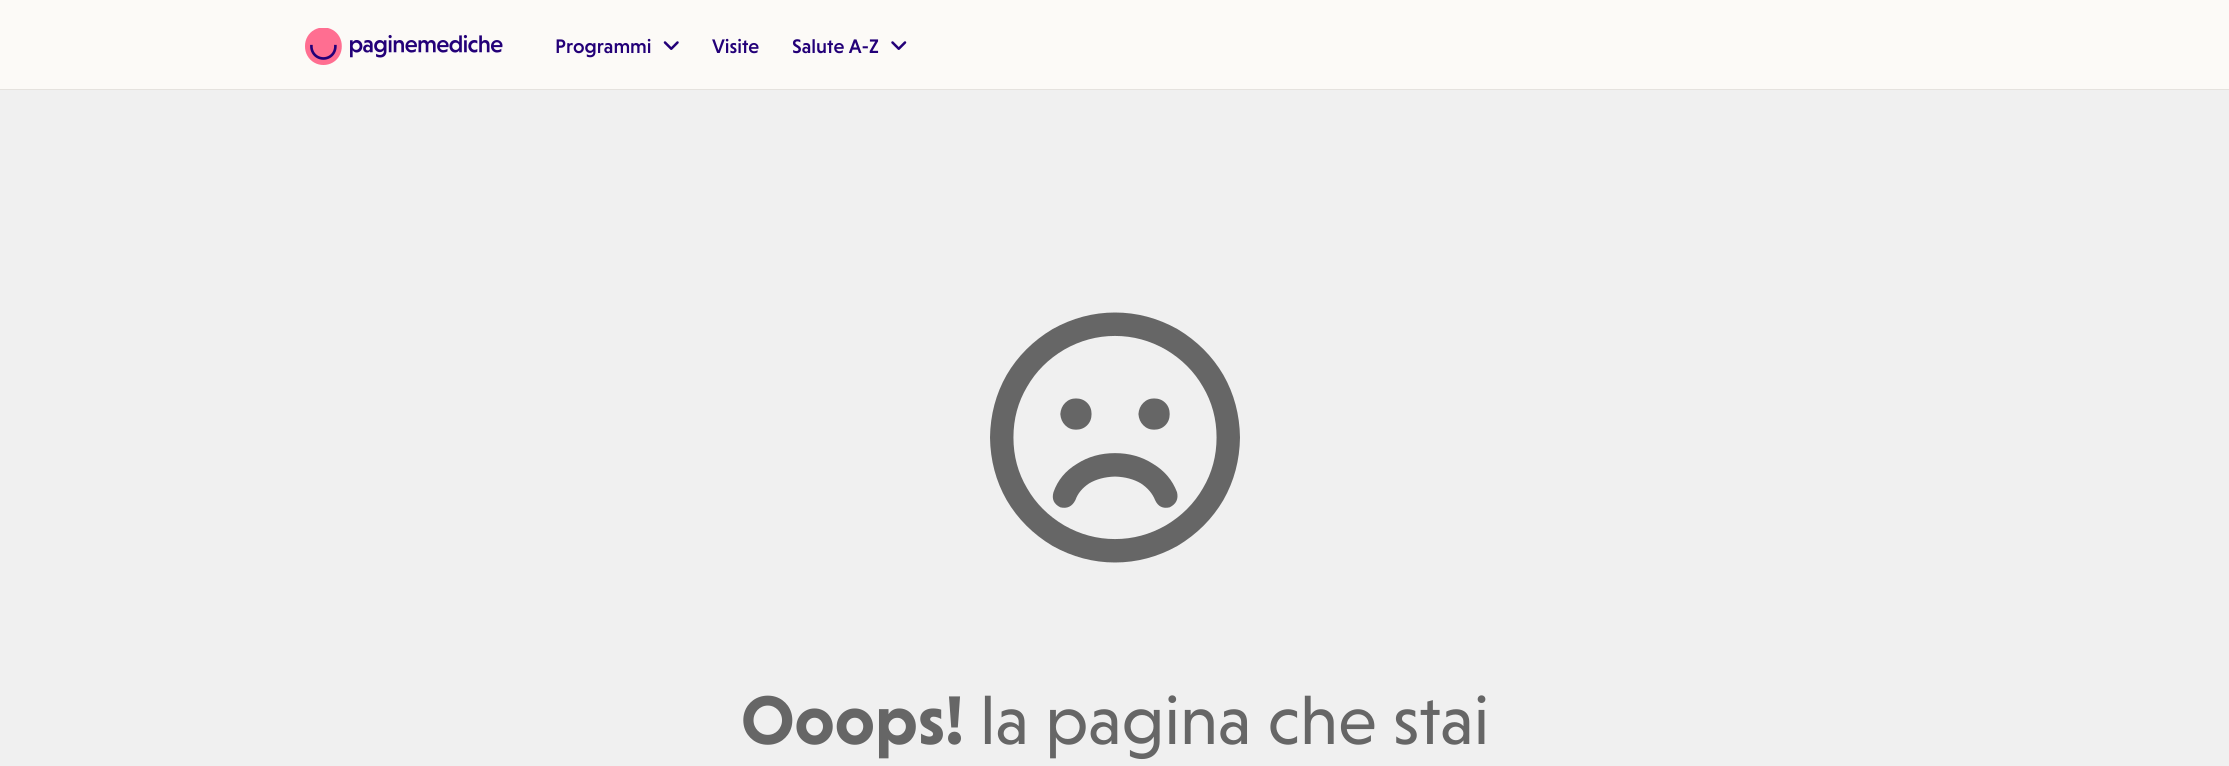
import math
import cairocffi as cairo

surface = cairo.ImageSurface(cairo.FORMAT_RGB24, 2229, 766)
ctx = cairo.Context(surface)
options = cairo.FontOptions()
options.set_hint_metrics(cairo.HINT_METRICS_OFF)
options.set_hint_style(cairo.HINT_STYLE_NONE)
ctx.set_font_options(options)
ctx.set_miter_limit(4)


def rgb(r, g, b):
    ctx.set_source_rgb(r / 255, g / 255, b / 255)


def face(family, size, italic, bold):
    ctx.select_font_face(family, cairo.FONT_SLANT_ITALIC if italic else cairo.FONT_SLANT_NORMAL, cairo.FONT_WEIGHT_BOLD if bold else cairo.FONT_WEIGHT_NORMAL)
    ctx.set_font_size(size)


def label(x, y, s):
    ctx.move_to(x, y)
    ctx.show_text(s)


def rect(x, y, w, h):
    ctx.rectangle(x, y, w, h)
    ctx.fill()


def image(path, x, y, w, h):
    ctx.save()
    ctx.set_source_surface(cairo.ImageSurface.create_from_png(path), x, y)
    ctx.rectangle(x, y, w, h)
    ctx.fill()
    ctx.restore()


rgb(240, 240, 240)
ctx.paint()
rgb(252, 250, 247)
rect(0, 0, 2229, 89)
rgb(229, 226, 222)
rect(0, 89, 2229, 1)
image('image0.png', 305, 28, 198, 37)
face('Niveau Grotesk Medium', 20, 0, 0)
rgb(35, 0, 120)
label(555, 53, 'Programmi')
image('image1.png', 663, 41, 16, 9)
label(712, 53, 'Visite')
label(792, 53, 'Salute A-Z')
image('image2.png', 891, 41, 16, 9)
image('image3.png', 990, 312, 250, 251)
face('Niveau Grotesk', 70, 0, 1)
rgb(102, 102, 102)
label(741, 744, 'Ooops!')
face('Niveau Grotesk', 70, 0, 0)
label(980, 744, 'la pagina che stai')
surface.write_to_png('render.png')
